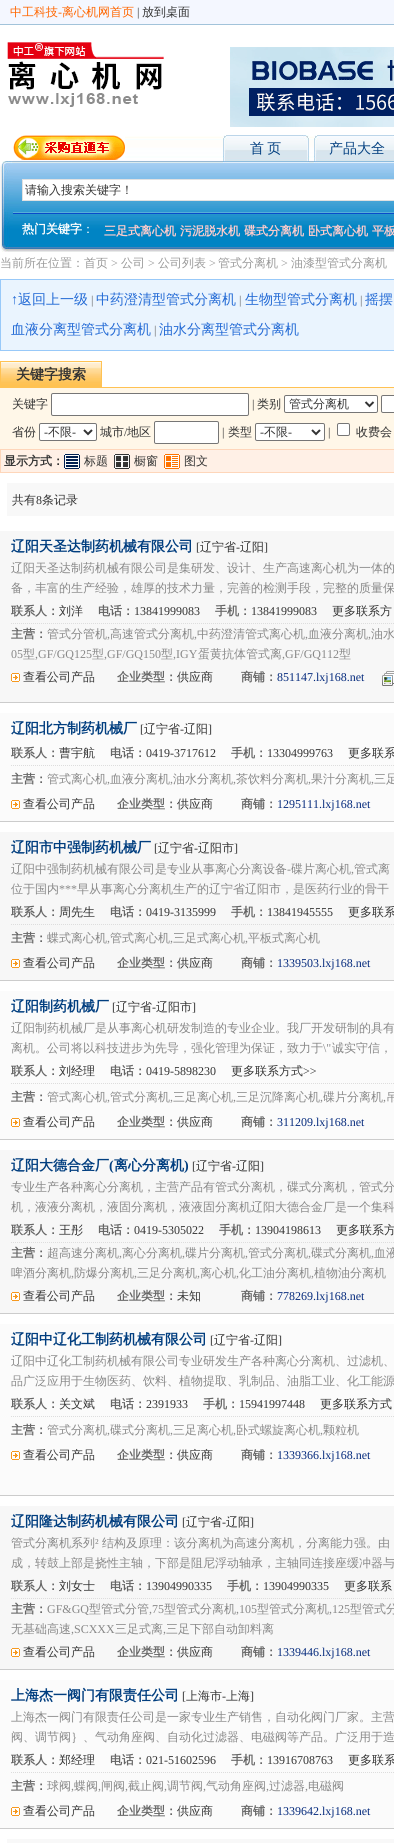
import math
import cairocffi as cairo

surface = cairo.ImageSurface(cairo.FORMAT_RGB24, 394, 1843)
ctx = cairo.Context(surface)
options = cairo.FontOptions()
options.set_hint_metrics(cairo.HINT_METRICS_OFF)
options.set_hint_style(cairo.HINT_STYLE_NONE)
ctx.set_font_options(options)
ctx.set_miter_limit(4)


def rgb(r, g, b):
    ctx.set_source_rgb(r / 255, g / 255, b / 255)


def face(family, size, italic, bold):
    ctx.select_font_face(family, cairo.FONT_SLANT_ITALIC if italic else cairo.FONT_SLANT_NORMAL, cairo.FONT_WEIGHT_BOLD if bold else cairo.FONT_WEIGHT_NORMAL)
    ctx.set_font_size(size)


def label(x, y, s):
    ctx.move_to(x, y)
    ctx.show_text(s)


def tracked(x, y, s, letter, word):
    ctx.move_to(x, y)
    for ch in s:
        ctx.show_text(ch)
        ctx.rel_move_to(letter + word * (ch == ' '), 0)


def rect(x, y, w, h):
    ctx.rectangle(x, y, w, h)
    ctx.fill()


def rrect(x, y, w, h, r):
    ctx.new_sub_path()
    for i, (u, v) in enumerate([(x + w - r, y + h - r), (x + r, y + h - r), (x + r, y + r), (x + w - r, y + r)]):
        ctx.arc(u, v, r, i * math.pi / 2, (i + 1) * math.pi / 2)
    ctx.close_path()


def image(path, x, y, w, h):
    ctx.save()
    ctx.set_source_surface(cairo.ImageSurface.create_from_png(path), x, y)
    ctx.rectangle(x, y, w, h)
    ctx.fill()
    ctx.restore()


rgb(255, 255, 255)
ctx.paint()
rgb(244, 247, 255)
rect(0, 0, 394, 24)
rgb(162, 195, 218)
rect(0, 24, 394, 1)
face('WenQuanYi Zen Hei Medium', 12, 0, 0)
rgb(255, 102, 0)
label(10, 16, '中工科技')
face('Liberation Serif', 12, 0, 0)
label(58, 16, '-')
face('WenQuanYi Zen Hei Medium', 12, 0, 0)
label(62, 16, '离心机网首页')
face('Liberation Serif', 12, 0, 0)
rgb(51, 51, 51)
label(137, 16, '|')
face('WenQuanYi Zen Hei Medium', 12, 0, 0)
label(142, 16, '放到桌面')
image('image0.png', 7, 42, 157, 65)
image('image1.png', 230, 47, 164, 80)
image('image2.png', 13, 136, 210, 27)
image('image3.png', 13, 135, 112, 25)
image('image4.png', 223, 135, 86, 28)
face('WenQuanYi Zen Hei Medium', 14, 0, 0)
rgb(1, 62, 127)
tracked(250, 153, '首 页', 0, -1)
image('image5.png', 309, 136, 5, 27)
image('image6.png', 314, 135, 80, 28)
label(329, 153, '产品大全')
image('image7.png', 2, 161, 11, 2)
image('image8.png', 0, 163, 13, 89)
image('image9.png', 13, 163, 381, 89)
rgb(255, 255, 255)
ctx.rectangle(22.5, 179.5, 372, 21)
ctx.fill_preserve()
rgb(225, 225, 225)
ctx.set_line_width(1)
ctx.stroke()
face('WenQuanYi Zen Hei Medium', 12, 0, 0)
rgb(51, 51, 51)
label(25, 194, '请输入搜索关键字！')
face('WenQuanYi Zen Hei', 12, 0, 1)
rgb(255, 255, 255)
label(22, 233, '热门关键字')
face('WenQuanYi Zen Hei Medium', 12, 0, 0)
label(82, 233, '：')
face('WenQuanYi Zen Hei', 12, 0, 1)
rgb(255, 204, 204)
label(104, 235, '三足式离心机')
label(180, 235, '污泥脱水机')
label(244, 235, '碟式分离机')
label(308, 235, '卧式离心机')
label(372, 235, '平板')
face('WenQuanYi Zen Hei Medium', 12, 0, 0)
rgb(153, 153, 153)
label(0, 267, '当前所在位置：首页')
face('Liberation Serif', 12, 0, 0)
label(111, 267, '>')
face('WenQuanYi Zen Hei Medium', 12, 0, 0)
label(121, 267, '公司')
face('Liberation Serif', 12, 0, 0)
label(148, 267, '>')
face('WenQuanYi Zen Hei Medium', 12, 0, 0)
label(158, 267, '公司列表')
face('Liberation Serif', 12, 0, 0)
label(209, 267, '>')
face('WenQuanYi Zen Hei Medium', 12, 0, 0)
label(218, 267, '管式分离机')
face('Liberation Serif', 12, 0, 0)
label(281, 267, '>')
face('WenQuanYi Zen Hei Medium', 12, 0, 0)
label(291, 267, '油漆型管式分离机')
rgb(234, 244, 254)
ctx.rectangle(0.5, 279.5, 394, 71)
ctx.fill_preserve()
rgb(152, 201, 249)
ctx.stroke()
face('Liberation Serif', 14, 0, 0)
rgb(35, 106, 213)
label(11, 304, '↑')
face('WenQuanYi Zen Hei Medium', 14, 0, 0)
label(18, 304, '返回上一级')
face('Liberation Serif', 12, 0, 0)
rgb(102, 102, 102)
label(91, 304, '|')
face('WenQuanYi Zen Hei Medium', 14, 0, 0)
rgb(35, 106, 213)
label(96, 304, '中药澄清型管式分离机')
face('Liberation Serif', 12, 0, 0)
rgb(102, 102, 102)
label(239, 304, '|')
face('WenQuanYi Zen Hei Medium', 14, 0, 0)
rgb(35, 106, 213)
label(245, 304, '生物型管式分离机')
face('Liberation Serif', 12, 0, 0)
rgb(102, 102, 102)
label(360, 304, '|')
face('WenQuanYi Zen Hei Medium', 14, 0, 0)
rgb(35, 106, 213)
label(365, 304, '摇摆')
label(11, 334, '血液分离型管式分离机')
face('Liberation Serif', 12, 0, 0)
rgb(102, 102, 102)
label(154, 334, '|')
face('WenQuanYi Zen Hei Medium', 14, 0, 0)
rgb(35, 106, 213)
label(159, 334, '油水分离型管式分离机')
image('image10.png', 1, 362, 100, 25)
ctx.rectangle(0.5, 361.5, 101, 26)
rgb(255, 194, 83)
ctx.stroke()
face('WenQuanYi Zen Hei', 14, 0, 1)
rgb(51, 51, 51)
label(16, 379, '关键字搜索')
rgb(255, 194, 83)
rect(102, 387, 292, 1)
rgb(255, 247, 232)
rect(0, 388, 394, 61)
face('WenQuanYi Zen Hei Medium', 12, 0, 0)
rgb(51, 51, 51)
label(12, 408, '关键字')
rgb(255, 255, 255)
rrect(51.5, 393.5, 197, 22, 1.5)
ctx.fill_preserve()
rgb(118, 118, 118)
ctx.stroke()
face('Liberation Serif', 12, 0, 0)
rgb(51, 51, 51)
label(252, 408, '|')
face('WenQuanYi Zen Hei Medium', 12, 0, 0)
label(257, 408, '类别')
rgb(255, 255, 255)
rrect(284.5, 395.5, 93, 17, 1.5)
ctx.fill_preserve()
rgb(118, 118, 118)
ctx.stroke()
ctx.new_path()
ctx.move_to(365.5, 402)
ctx.line_to(369.5, 406)
ctx.line_to(373.5, 402)
rgb(51, 51, 51)
ctx.set_line_width(2)
ctx.stroke()
label(289, 408, '管式分离机')
rgb(255, 255, 255)
rrect(381.5, 395.5, 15, 17, 1.5)
ctx.fill_preserve()
rgb(118, 118, 118)
ctx.set_line_width(1)
ctx.stroke()
rgb(51, 51, 51)
label(12, 436, '省份')
rgb(255, 255, 255)
rrect(39.5, 423.5, 57, 17, 1.5)
ctx.fill_preserve()
rgb(118, 118, 118)
ctx.stroke()
ctx.new_path()
ctx.move_to(84, 430)
ctx.line_to(88, 434)
ctx.line_to(92, 430)
rgb(51, 51, 51)
ctx.set_line_width(2)
ctx.stroke()
face('Liberation Serif', 12, 0, 0)
label(44, 436, '-')
face('WenQuanYi Zen Hei Medium', 12, 0, 0)
label(48, 436, '不限')
face('Liberation Serif', 12, 0, 0)
label(72, 436, '-')
face('WenQuanYi Zen Hei Medium', 12, 0, 0)
label(100, 436, '城市')
face('Liberation Serif', 12, 0, 0)
label(124, 436, '/')
face('WenQuanYi Zen Hei Medium', 12, 0, 0)
label(127, 436, '地区')
rgb(255, 255, 255)
rrect(154.5, 421.5, 64, 22, 1.5)
ctx.fill_preserve()
rgb(118, 118, 118)
ctx.set_line_width(1)
ctx.stroke()
face('Liberation Serif', 12, 0, 0)
rgb(51, 51, 51)
label(222, 436, '|')
face('WenQuanYi Zen Hei Medium', 12, 0, 0)
label(228, 436, '类型')
rgb(255, 255, 255)
rrect(255.5, 423.5, 69, 17, 1.5)
ctx.fill_preserve()
rgb(118, 118, 118)
ctx.stroke()
ctx.new_path()
ctx.move_to(312, 430)
ctx.line_to(316, 434)
ctx.line_to(320, 430)
rgb(51, 51, 51)
ctx.set_line_width(2)
ctx.stroke()
face('Liberation Serif', 12, 0, 0)
label(260, 436, '-')
face('WenQuanYi Zen Hei Medium', 12, 0, 0)
label(264, 436, '不限')
face('Liberation Serif', 12, 0, 0)
label(288, 436, '-')
label(328, 436, '|')
rgb(255, 255, 255)
rrect(337.5, 423.5, 12, 12, 1.5)
ctx.fill_preserve()
rgb(118, 118, 118)
ctx.set_line_width(1)
ctx.stroke()
face('WenQuanYi Zen Hei Medium', 12, 0, 0)
rgb(51, 51, 51)
label(356, 436, '收费会')
rgb(255, 240, 230)
ctx.rectangle(0.5, 449.5, 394, 23)
ctx.fill_preserve()
rgb(254, 214, 186)
ctx.stroke()
face('WenQuanYi Zen Hei', 12, 0, 1)
rgb(51, 51, 51)
label(4, 465, '显示方式：')
image('image11.png', 64, 453, 16, 17)
face('WenQuanYi Zen Hei Medium', 12, 0, 0)
label(84, 465, '标题')
image('image12.png', 114, 454, 16, 15)
label(134, 465, '橱窗')
image('image13.png', 164, 454, 16, 15)
label(184, 465, '图文')
rgb(248, 248, 248)
rect(7, 483, 387, 33)
rgb(51, 51, 51)
label(12, 504, '共有')
face('Liberation Serif', 12, 0, 0)
label(36, 504, '8')
face('WenQuanYi Zen Hei Medium', 12, 0, 0)
label(42, 504, '条记录')
rgb(247, 247, 247)
rect(0, 531, 394, 171)
rgb(204, 204, 204)
rect(0, 702, 394, 1)
face('WenQuanYi Zen Hei', 14, 0, 1)
rgb(1, 62, 127)
label(11, 551, '辽阳天圣达制药机械有限公司')
face('Liberation Serif', 12, 0, 0)
rgb(51, 51, 51)
label(196, 551, '[')
face('WenQuanYi Zen Hei Medium', 12, 0, 0)
label(200, 551, '辽宁省')
face('Liberation Serif', 12, 0, 0)
label(236, 551, '-')
face('WenQuanYi Zen Hei Medium', 12, 0, 0)
label(240, 551, '辽阳')
face('Liberation Serif', 12, 0, 0)
label(264, 551, ']')
face('WenQuanYi Zen Hei Medium', 12, 0, 0)
rgb(136, 136, 136)
label(11, 572, '辽阳天圣达制药机械有限公司是集研发、设计、生产高速离心机为一体的')
label(11, 592, '备，丰富的生产经验，雄厚的技术力量，完善的检测手段，完整的质量保')
ctx.new_path()
ctx.move_to(11, 623.5)
ctx.line_to(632, 623.5)
rgb(221, 221, 221)
ctx.set_dash([1, 1])
ctx.stroke()
face('WenQuanYi Zen Hei', 12, 0, 1)
rgb(102, 102, 102)
label(11, 615, '联系人：')
face('WenQuanYi Zen Hei Medium', 12, 0, 0)
rgb(51, 51, 51)
label(59, 615, '刘洋')
face('WenQuanYi Zen Hei', 12, 0, 1)
rgb(102, 102, 102)
label(98, 615, '电话：')
face('Liberation Serif', 12, 0, 0)
rgb(51, 51, 51)
label(134, 615, '13841999083')
face('WenQuanYi Zen Hei', 12, 0, 1)
rgb(102, 102, 102)
label(215, 615, '手机：')
face('Liberation Serif', 12, 0, 0)
rgb(51, 51, 51)
label(251, 615, '13841999083')
face('WenQuanYi Zen Hei Medium', 12, 0, 0)
label(332, 615, '更多联系方')
face('WenQuanYi Zen Hei', 12, 0, 1)
rgb(102, 102, 102)
label(11, 638, '主营：')
face('WenQuanYi Zen Hei Medium', 12, 0, 0)
rgb(136, 136, 136)
label(47, 638, '管式分管机')
face('Liberation Serif', 12, 0, 0)
label(107, 638, ',')
face('WenQuanYi Zen Hei Medium', 12, 0, 0)
label(110, 638, '高速管式分离机')
face('Liberation Serif', 12, 0, 0)
label(194, 638, ',')
face('WenQuanYi Zen Hei Medium', 12, 0, 0)
label(197, 638, '中药澄清管式离心机')
face('Liberation Serif', 12, 0, 0)
label(305, 638, ',')
face('WenQuanYi Zen Hei Medium', 12, 0, 0)
label(308, 638, '血液分离机')
face('Liberation Serif', 12, 0, 0)
label(368, 638, ',')
face('WenQuanYi Zen Hei Medium', 12, 0, 0)
label(371, 638, '油水')
face('Liberation Serif', 12, 0, 0)
label(11, 658, '05')
face('WenQuanYi Zen Hei Medium', 12, 0, 0)
label(23, 658, '型')
face('Liberation Serif', 12, 0, 0)
label(35, 658, ',GF/GQ125')
face('WenQuanYi Zen Hei Medium', 12, 0, 0)
label(92, 658, '型')
face('Liberation Serif', 12, 0, 0)
label(104, 658, ',GF/GQ150')
face('WenQuanYi Zen Hei Medium', 12, 0, 0)
label(161, 658, '型')
face('Liberation Serif', 12, 0, 0)
label(173, 658, ',IGY')
face('WenQuanYi Zen Hei Medium', 12, 0, 0)
label(198, 658, '蛋黄抗体管式离')
face('Liberation Serif', 12, 0, 0)
label(282, 658, ',GF/GQ112')
face('WenQuanYi Zen Hei Medium', 12, 0, 0)
label(339, 658, '型')
image('image14.png', 11, 673, 9, 9)
rgb(51, 51, 51)
label(23, 681, '查看公司产品')
face('WenQuanYi Zen Hei', 12, 0, 1)
rgb(102, 102, 102)
label(117, 681, '企业类型：')
face('WenQuanYi Zen Hei Medium', 12, 0, 0)
rgb(51, 51, 51)
label(177, 681, '供应商')
face('WenQuanYi Zen Hei', 12, 0, 1)
rgb(102, 102, 102)
label(241, 681, '商铺：')
face('Liberation Serif', 12, 0, 0)
rgb(6, 43, 125)
label(277, 681, '851147.lxj168.net')
image('image15.png', 382, 671, 12, 15)
rgb(251, 251, 251)
rect(0, 713, 394, 108)
rgb(204, 204, 204)
rect(0, 821, 394, 1)
face('WenQuanYi Zen Hei', 14, 0, 1)
rgb(1, 62, 127)
label(11, 733, '辽阳北方制药机械厂')
face('Liberation Serif', 12, 0, 0)
rgb(51, 51, 51)
label(140, 733, '[')
face('WenQuanYi Zen Hei Medium', 12, 0, 0)
label(144, 733, '辽宁省')
face('Liberation Serif', 12, 0, 0)
label(180, 733, '-')
face('WenQuanYi Zen Hei Medium', 12, 0, 0)
label(184, 733, '辽阳')
face('Liberation Serif', 12, 0, 0)
label(208, 733, ']')
ctx.new_path()
ctx.move_to(11, 765.5)
ctx.line_to(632, 765.5)
rgb(221, 221, 221)
ctx.stroke()
face('WenQuanYi Zen Hei', 12, 0, 1)
rgb(102, 102, 102)
label(11, 757, '联系人：')
face('WenQuanYi Zen Hei Medium', 12, 0, 0)
rgb(51, 51, 51)
label(59, 757, '曹宇航')
face('WenQuanYi Zen Hei', 12, 0, 1)
rgb(102, 102, 102)
label(110, 757, '电话：')
face('Liberation Serif', 12, 0, 0)
rgb(51, 51, 51)
label(146, 757, '0419-3717612')
face('WenQuanYi Zen Hei', 12, 0, 1)
rgb(102, 102, 102)
label(231, 757, '手机：')
face('Liberation Serif', 12, 0, 0)
rgb(51, 51, 51)
label(267, 757, '13304999763')
face('WenQuanYi Zen Hei Medium', 12, 0, 0)
label(348, 757, '更多联系')
face('WenQuanYi Zen Hei', 12, 0, 1)
rgb(102, 102, 102)
label(11, 783, '主营：')
face('WenQuanYi Zen Hei Medium', 12, 0, 0)
rgb(136, 136, 136)
label(47, 783, '管式离心机')
face('Liberation Serif', 12, 0, 0)
label(107, 783, ',')
face('WenQuanYi Zen Hei Medium', 12, 0, 0)
label(110, 783, '血液分离机')
face('Liberation Serif', 12, 0, 0)
label(170, 783, ',')
face('WenQuanYi Zen Hei Medium', 12, 0, 0)
label(173, 783, '油水分离机')
face('Liberation Serif', 12, 0, 0)
label(233, 783, ',')
face('WenQuanYi Zen Hei Medium', 12, 0, 0)
label(236, 783, '茶饮料分离机')
face('Liberation Serif', 12, 0, 0)
label(308, 783, ',')
face('WenQuanYi Zen Hei Medium', 12, 0, 0)
label(311, 783, '果汁分离机')
face('Liberation Serif', 12, 0, 0)
label(371, 783, ',')
face('WenQuanYi Zen Hei Medium', 12, 0, 0)
label(374, 783, '三足')
image('image16.png', 11, 800, 9, 9)
rgb(51, 51, 51)
label(23, 808, '查看公司产品')
face('WenQuanYi Zen Hei', 12, 0, 1)
rgb(102, 102, 102)
label(117, 808, '企业类型：')
face('WenQuanYi Zen Hei Medium', 12, 0, 0)
rgb(51, 51, 51)
label(177, 808, '供应商')
face('WenQuanYi Zen Hei', 12, 0, 1)
rgb(102, 102, 102)
label(241, 808, '商铺：')
face('Liberation Serif', 12, 0, 0)
rgb(6, 43, 125)
label(277, 808, '1295111.lxj168.net')
rgb(247, 247, 247)
rect(0, 832, 394, 148)
rgb(204, 204, 204)
rect(0, 980, 394, 1)
face('WenQuanYi Zen Hei', 14, 0, 1)
rgb(1, 62, 127)
label(11, 852, '辽阳市中强制药机械厂')
face('Liberation Serif', 12, 0, 0)
rgb(51, 51, 51)
label(154, 852, '[')
face('WenQuanYi Zen Hei Medium', 12, 0, 0)
label(158, 852, '辽宁省')
face('Liberation Serif', 12, 0, 0)
label(194, 852, '-')
face('WenQuanYi Zen Hei Medium', 12, 0, 0)
label(198, 852, '辽阳市')
face('Liberation Serif', 12, 0, 0)
label(234, 852, ']')
face('WenQuanYi Zen Hei Medium', 12, 0, 0)
rgb(136, 136, 136)
label(11, 873, '辽阳中强制药机械有限公司是专业从事离心分离设备')
face('Liberation Serif', 12, 0, 0)
label(287, 873, '-')
face('WenQuanYi Zen Hei Medium', 12, 0, 0)
label(291, 873, '碟片离心机')
label(354, 873, '管式离')
face('Liberation Serif', 12, 0, 0)
label(351, 873, ',')
face('WenQuanYi Zen Hei Medium', 12, 0, 0)
label(11, 893, '位于国内')
face('Liberation Serif', 12, 0, 0)
label(59, 893, '***')
face('WenQuanYi Zen Hei Medium', 12, 0, 0)
tracked(77, 893, '早从事离心分离机生产的辽宁省辽阳市，是医药行业的骨干', 0, -1)
ctx.new_path()
ctx.move_to(11, 924.5)
ctx.line_to(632, 924.5)
rgb(221, 221, 221)
ctx.stroke()
face('WenQuanYi Zen Hei', 12, 0, 1)
rgb(102, 102, 102)
label(11, 916, '联系人：')
face('WenQuanYi Zen Hei Medium', 12, 0, 0)
rgb(51, 51, 51)
label(59, 916, '周先生')
face('WenQuanYi Zen Hei', 12, 0, 1)
rgb(102, 102, 102)
label(110, 916, '电话：')
face('Liberation Serif', 12, 0, 0)
rgb(51, 51, 51)
label(146, 916, '0419-3135999')
face('WenQuanYi Zen Hei', 12, 0, 1)
rgb(102, 102, 102)
label(231, 916, '手机：')
face('Liberation Serif', 12, 0, 0)
rgb(51, 51, 51)
label(267, 916, '13841945555')
face('WenQuanYi Zen Hei Medium', 12, 0, 0)
label(348, 916, '更多联系')
face('WenQuanYi Zen Hei', 12, 0, 1)
rgb(102, 102, 102)
label(11, 942, '主营：')
face('WenQuanYi Zen Hei Medium', 12, 0, 0)
rgb(136, 136, 136)
label(47, 942, '蝶式离心机')
face('Liberation Serif', 12, 0, 0)
label(107, 942, ',')
face('WenQuanYi Zen Hei Medium', 12, 0, 0)
label(110, 942, '管式离心机')
face('Liberation Serif', 12, 0, 0)
label(170, 942, ',')
face('WenQuanYi Zen Hei Medium', 12, 0, 0)
label(173, 942, '三足式离心机')
face('Liberation Serif', 12, 0, 0)
label(245, 942, ',')
face('WenQuanYi Zen Hei Medium', 12, 0, 0)
label(248, 942, '平板式离心机')
image('image14.png', 11, 959, 9, 9)
rgb(51, 51, 51)
label(23, 967, '查看公司产品')
face('WenQuanYi Zen Hei', 12, 0, 1)
rgb(102, 102, 102)
label(117, 967, '企业类型：')
face('WenQuanYi Zen Hei Medium', 12, 0, 0)
rgb(51, 51, 51)
label(177, 967, '供应商')
face('WenQuanYi Zen Hei', 12, 0, 1)
rgb(102, 102, 102)
label(241, 967, '商铺：')
face('Liberation Serif', 12, 0, 0)
rgb(6, 43, 125)
label(277, 967, '1339503.lxj168.net')
rgb(251, 251, 251)
rect(0, 991, 394, 148)
rgb(204, 204, 204)
rect(0, 1139, 394, 1)
face('WenQuanYi Zen Hei', 14, 0, 1)
rgb(1, 62, 127)
label(11, 1011, '辽阳制药机械厂')
face('Liberation Serif', 12, 0, 0)
rgb(51, 51, 51)
label(112, 1011, '[')
face('WenQuanYi Zen Hei Medium', 12, 0, 0)
label(116, 1011, '辽宁省')
face('Liberation Serif', 12, 0, 0)
label(152, 1011, '-')
face('WenQuanYi Zen Hei Medium', 12, 0, 0)
label(156, 1011, '辽阳市')
face('Liberation Serif', 12, 0, 0)
label(192, 1011, ']')
face('WenQuanYi Zen Hei Medium', 12, 0, 0)
rgb(136, 136, 136)
label(11, 1032, '辽阳制药机械厂是从事离心机研发制造的专业企业。我厂开发研制的具有')
label(11, 1052, '离机。公司将以科技进步为先导，强化管理为保证，致力于')
face('Liberation Serif', 12, 0, 0)
label(323, 1052, '\\"')
face('WenQuanYi Zen Hei Medium', 12, 0, 0)
label(332, 1052, '诚实守信，')
ctx.new_path()
ctx.move_to(11, 1083.5)
ctx.line_to(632, 1083.5)
rgb(221, 221, 221)
ctx.stroke()
face('WenQuanYi Zen Hei', 12, 0, 1)
rgb(102, 102, 102)
label(11, 1075, '联系人：')
face('WenQuanYi Zen Hei Medium', 12, 0, 0)
rgb(51, 51, 51)
label(59, 1075, '刘经理')
face('WenQuanYi Zen Hei', 12, 0, 1)
rgb(102, 102, 102)
label(110, 1075, '电话：')
face('Liberation Serif', 12, 0, 0)
rgb(51, 51, 51)
label(146, 1075, '0419-5898230')
face('WenQuanYi Zen Hei Medium', 12, 0, 0)
label(231, 1075, '更多联系方式')
face('Liberation Serif', 12, 0, 0)
label(303, 1075, '>>')
face('WenQuanYi Zen Hei', 12, 0, 1)
rgb(102, 102, 102)
label(11, 1101, '主营：')
face('WenQuanYi Zen Hei Medium', 12, 0, 0)
rgb(136, 136, 136)
label(47, 1101, '管式离心机')
face('Liberation Serif', 12, 0, 0)
label(107, 1101, ',')
face('WenQuanYi Zen Hei Medium', 12, 0, 0)
label(110, 1101, '管式分离机')
face('Liberation Serif', 12, 0, 0)
label(170, 1101, ',')
face('WenQuanYi Zen Hei Medium', 12, 0, 0)
label(173, 1101, '三足离心机')
face('Liberation Serif', 12, 0, 0)
label(233, 1101, ',')
face('WenQuanYi Zen Hei Medium', 12, 0, 0)
label(236, 1101, '三足沉降离心机')
face('Liberation Serif', 12, 0, 0)
label(320, 1101, ',')
face('WenQuanYi Zen Hei Medium', 12, 0, 0)
label(323, 1101, '碟片分离机')
face('Liberation Serif', 12, 0, 0)
label(383, 1101, ',')
face('WenQuanYi Zen Hei Medium', 12, 0, 0)
label(386, 1101, '吊')
image('image16.png', 11, 1118, 9, 9)
rgb(51, 51, 51)
label(23, 1126, '查看公司产品')
face('WenQuanYi Zen Hei', 12, 0, 1)
rgb(102, 102, 102)
label(117, 1126, '企业类型：')
face('WenQuanYi Zen Hei Medium', 12, 0, 0)
rgb(51, 51, 51)
label(177, 1126, '供应商')
face('WenQuanYi Zen Hei', 12, 0, 1)
rgb(102, 102, 102)
label(241, 1126, '商铺：')
face('Liberation Serif', 12, 0, 0)
rgb(6, 43, 125)
label(277, 1126, '311209.lxj168.net')
rgb(247, 247, 247)
rect(0, 1150, 394, 163)
rgb(204, 204, 204)
rect(0, 1313, 394, 1)
face('WenQuanYi Zen Hei', 14, 0, 1)
rgb(1, 62, 127)
label(11, 1170, '辽阳大德合金厂')
face('Liberation Serif', 14, 0, 1)
label(109, 1170, '(')
face('WenQuanYi Zen Hei', 14, 0, 1)
label(114, 1170, '离心分离机')
face('Liberation Serif', 14, 0, 1)
label(184, 1170, ')')
face('Liberation Serif', 12, 0, 0)
rgb(51, 51, 51)
label(192, 1170, '[')
face('WenQuanYi Zen Hei Medium', 12, 0, 0)
label(196, 1170, '辽宁省')
face('Liberation Serif', 12, 0, 0)
label(232, 1170, '-')
face('WenQuanYi Zen Hei Medium', 12, 0, 0)
label(236, 1170, '辽阳')
face('Liberation Serif', 12, 0, 0)
label(260, 1170, ']')
face('WenQuanYi Zen Hei Medium', 12, 0, 0)
rgb(136, 136, 136)
label(11, 1191, '专业生产各种离心分离机，主营产品有管式分离机，碟式分离机，管式分')
label(11, 1211, '机，液液分离机，液固分离机，液液固分离机辽阳大德合金厂是一个集科')
ctx.new_path()
ctx.move_to(11, 1242.5)
ctx.line_to(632, 1242.5)
rgb(221, 221, 221)
ctx.stroke()
face('WenQuanYi Zen Hei', 12, 0, 1)
rgb(102, 102, 102)
label(11, 1234, '联系人：')
face('WenQuanYi Zen Hei Medium', 12, 0, 0)
rgb(51, 51, 51)
label(59, 1234, '王彤')
face('WenQuanYi Zen Hei', 12, 0, 1)
rgb(102, 102, 102)
label(98, 1234, '电话：')
face('Liberation Serif', 12, 0, 0)
rgb(51, 51, 51)
label(134, 1234, '0419-5305022')
face('WenQuanYi Zen Hei', 12, 0, 1)
rgb(102, 102, 102)
label(219, 1234, '手机：')
face('Liberation Serif', 12, 0, 0)
rgb(51, 51, 51)
label(255, 1234, '13904198613')
face('WenQuanYi Zen Hei Medium', 12, 0, 0)
label(336, 1234, '更多联系方')
face('WenQuanYi Zen Hei', 12, 0, 1)
rgb(102, 102, 102)
label(11, 1257, '主营：')
face('WenQuanYi Zen Hei Medium', 12, 0, 0)
rgb(136, 136, 136)
label(47, 1257, '超高速分离机')
face('Liberation Serif', 12, 0, 0)
label(119, 1257, ',')
face('WenQuanYi Zen Hei Medium', 12, 0, 0)
label(122, 1257, '离心分离机')
face('Liberation Serif', 12, 0, 0)
label(182, 1257, ',')
face('WenQuanYi Zen Hei Medium', 12, 0, 0)
label(185, 1257, '碟片分离机')
face('Liberation Serif', 12, 0, 0)
label(245, 1257, ',')
face('WenQuanYi Zen Hei Medium', 12, 0, 0)
label(248, 1257, '管式分离机')
face('Liberation Serif', 12, 0, 0)
label(308, 1257, ',')
face('WenQuanYi Zen Hei Medium', 12, 0, 0)
label(311, 1257, '碟式分离机')
face('Liberation Serif', 12, 0, 0)
label(371, 1257, ',')
face('WenQuanYi Zen Hei Medium', 12, 0, 0)
label(374, 1257, '血液')
label(11, 1277, '啤酒分离机')
face('Liberation Serif', 12, 0, 0)
label(71, 1277, ',')
face('WenQuanYi Zen Hei Medium', 12, 0, 0)
label(74, 1277, '防爆分离机')
face('Liberation Serif', 12, 0, 0)
label(134, 1277, ',')
face('WenQuanYi Zen Hei Medium', 12, 0, 0)
label(137, 1277, '三足分离机')
face('Liberation Serif', 12, 0, 0)
label(197, 1277, ',')
face('WenQuanYi Zen Hei Medium', 12, 0, 0)
label(200, 1277, '离心机')
face('Liberation Serif', 12, 0, 0)
label(236, 1277, ',')
face('WenQuanYi Zen Hei Medium', 12, 0, 0)
label(239, 1277, '化工油分离机')
face('Liberation Serif', 12, 0, 0)
label(311, 1277, ',')
face('WenQuanYi Zen Hei Medium', 12, 0, 0)
label(314, 1277, '植物油分离机')
image('image14.png', 11, 1292, 9, 9)
rgb(51, 51, 51)
label(23, 1300, '查看公司产品')
face('WenQuanYi Zen Hei', 12, 0, 1)
rgb(102, 102, 102)
label(117, 1300, '企业类型：')
face('WenQuanYi Zen Hei Medium', 12, 0, 0)
rgb(51, 51, 51)
label(177, 1300, '未知')
face('WenQuanYi Zen Hei', 12, 0, 1)
rgb(102, 102, 102)
label(241, 1300, '商铺：')
face('Liberation Serif', 12, 0, 0)
rgb(6, 43, 125)
label(277, 1300, '778269.lxj168.net')
rgb(251, 251, 251)
rect(0, 1324, 394, 171)
rgb(204, 204, 204)
rect(0, 1495, 394, 1)
face('WenQuanYi Zen Hei', 14, 0, 1)
rgb(1, 62, 127)
label(11, 1344, '辽阳中辽化工制药机械有限公司')
face('Liberation Serif', 12, 0, 0)
rgb(51, 51, 51)
label(210, 1344, '[')
face('WenQuanYi Zen Hei Medium', 12, 0, 0)
label(214, 1344, '辽宁省')
face('Liberation Serif', 12, 0, 0)
label(250, 1344, '-')
face('WenQuanYi Zen Hei Medium', 12, 0, 0)
label(254, 1344, '辽阳')
face('Liberation Serif', 12, 0, 0)
label(278, 1344, ']')
face('WenQuanYi Zen Hei Medium', 12, 0, 0)
rgb(136, 136, 136)
label(11, 1365, '辽阳中辽化工制药机械有限公司专业研发生产各种离心分离机、过滤机、')
label(11, 1385, '品广泛应用于生物医药、饮料、植物提取、乳制品、油脂工业、化工能源')
ctx.new_path()
ctx.move_to(11, 1416.5)
ctx.line_to(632, 1416.5)
rgb(221, 221, 221)
ctx.stroke()
face('WenQuanYi Zen Hei', 12, 0, 1)
rgb(102, 102, 102)
label(11, 1408, '联系人：')
face('WenQuanYi Zen Hei Medium', 12, 0, 0)
rgb(51, 51, 51)
label(59, 1408, '关文斌')
face('WenQuanYi Zen Hei', 12, 0, 1)
rgb(102, 102, 102)
label(110, 1408, '电话：')
face('Liberation Serif', 12, 0, 0)
rgb(51, 51, 51)
label(146, 1408, '2391933')
face('WenQuanYi Zen Hei', 12, 0, 1)
rgb(102, 102, 102)
label(203, 1408, '手机：')
face('Liberation Serif', 12, 0, 0)
rgb(51, 51, 51)
label(239, 1408, '15941997448')
face('WenQuanYi Zen Hei Medium', 12, 0, 0)
label(320, 1408, '更多联系方式')
face('WenQuanYi Zen Hei', 12, 0, 1)
rgb(102, 102, 102)
label(11, 1434, '主营：')
face('WenQuanYi Zen Hei Medium', 12, 0, 0)
rgb(136, 136, 136)
label(47, 1434, '管式分离机')
face('Liberation Serif', 12, 0, 0)
label(107, 1434, ',')
face('WenQuanYi Zen Hei Medium', 12, 0, 0)
label(110, 1434, '碟式分离机')
face('Liberation Serif', 12, 0, 0)
label(170, 1434, ',')
face('WenQuanYi Zen Hei Medium', 12, 0, 0)
label(173, 1434, '三足离心机')
face('Liberation Serif', 12, 0, 0)
label(233, 1434, ',')
face('WenQuanYi Zen Hei Medium', 12, 0, 0)
label(236, 1434, '卧式螺旋离心机')
face('Liberation Serif', 12, 0, 0)
label(320, 1434, ',')
face('WenQuanYi Zen Hei Medium', 12, 0, 0)
label(323, 1434, '颗粒机')
image('image16.png', 11, 1451, 9, 9)
rgb(51, 51, 51)
label(23, 1459, '查看公司产品')
face('WenQuanYi Zen Hei', 12, 0, 1)
rgb(102, 102, 102)
label(117, 1459, '企业类型：')
face('WenQuanYi Zen Hei Medium', 12, 0, 0)
rgb(51, 51, 51)
label(177, 1459, '供应商')
face('WenQuanYi Zen Hei', 12, 0, 1)
rgb(102, 102, 102)
label(241, 1459, '商铺：')
face('Liberation Serif', 12, 0, 0)
rgb(6, 43, 125)
label(277, 1459, '1339366.lxj168.net')
rgb(247, 247, 247)
rect(0, 1506, 394, 163)
rgb(204, 204, 204)
rect(0, 1669, 394, 1)
face('WenQuanYi Zen Hei', 14, 0, 1)
rgb(1, 62, 127)
label(11, 1526, '辽阳隆达制药机械有限公司')
face('Liberation Serif', 12, 0, 0)
rgb(51, 51, 51)
label(182, 1526, '[')
face('WenQuanYi Zen Hei Medium', 12, 0, 0)
label(186, 1526, '辽宁省')
face('Liberation Serif', 12, 0, 0)
label(222, 1526, '-')
face('WenQuanYi Zen Hei Medium', 12, 0, 0)
label(226, 1526, '辽阳')
face('Liberation Serif', 12, 0, 0)
label(250, 1526, ']')
face('WenQuanYi Zen Hei Medium', 12, 0, 0)
rgb(136, 136, 136)
label(11, 1547, '管式分离机系列')
face('Liberation Serif', 12, 0, 0)
label(95, 1547, '²')
face('WenQuanYi Zen Hei Medium', 12, 0, 0)
label(102, 1547, '结构及原理：该分离机为高速分离机，分离能力强。由')
label(11, 1567, '成，转鼓上部是挠性主轴，下部是阻尼浮动轴承，主轴同连接座缓冲器与')
ctx.new_path()
ctx.move_to(11, 1598.5)
ctx.line_to(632, 1598.5)
rgb(221, 221, 221)
ctx.stroke()
face('WenQuanYi Zen Hei', 12, 0, 1)
rgb(102, 102, 102)
label(11, 1590, '联系人：')
face('WenQuanYi Zen Hei Medium', 12, 0, 0)
rgb(51, 51, 51)
label(59, 1590, '刘女士')
face('WenQuanYi Zen Hei', 12, 0, 1)
rgb(102, 102, 102)
label(110, 1590, '电话：')
face('Liberation Serif', 12, 0, 0)
rgb(51, 51, 51)
label(146, 1590, '13904990335')
face('WenQuanYi Zen Hei', 12, 0, 1)
rgb(102, 102, 102)
label(227, 1590, '手机：')
face('Liberation Serif', 12, 0, 0)
rgb(51, 51, 51)
label(263, 1590, '13904990335')
face('WenQuanYi Zen Hei Medium', 12, 0, 0)
label(344, 1590, '更多联系')
face('WenQuanYi Zen Hei', 12, 0, 1)
rgb(102, 102, 102)
label(11, 1613, '主营：')
face('Liberation Serif', 12, 0, 0)
rgb(136, 136, 136)
label(47, 1613, 'GF&GQ')
face('WenQuanYi Zen Hei Medium', 12, 0, 0)
label(89, 1613, '型管式分管')
face('Liberation Serif', 12, 0, 0)
label(149, 1613, ',75')
face('WenQuanYi Zen Hei Medium', 12, 0, 0)
label(164, 1613, '型管式分离机')
face('Liberation Serif', 12, 0, 0)
label(236, 1613, ',105')
face('WenQuanYi Zen Hei Medium', 12, 0, 0)
label(257, 1613, '型管式分离机')
face('Liberation Serif', 12, 0, 0)
label(329, 1613, ',125')
face('WenQuanYi Zen Hei Medium', 12, 0, 0)
label(350, 1613, '型管式分')
label(11, 1633, '无基础高速')
face('Liberation Serif', 12, 0, 0)
label(71, 1633, ',SCXXX')
face('WenQuanYi Zen Hei Medium', 12, 0, 0)
label(115, 1633, '三足式离')
face('Liberation Serif', 12, 0, 0)
label(163, 1633, ',')
face('WenQuanYi Zen Hei Medium', 12, 0, 0)
label(166, 1633, '三足下部自动卸料离')
image('image14.png', 11, 1648, 9, 9)
rgb(51, 51, 51)
label(23, 1656, '查看公司产品')
face('WenQuanYi Zen Hei', 12, 0, 1)
rgb(102, 102, 102)
label(117, 1656, '企业类型：')
face('WenQuanYi Zen Hei Medium', 12, 0, 0)
rgb(51, 51, 51)
label(177, 1656, '供应商')
face('WenQuanYi Zen Hei', 12, 0, 1)
rgb(102, 102, 102)
label(241, 1656, '商铺：')
face('Liberation Serif', 12, 0, 0)
rgb(6, 43, 125)
label(277, 1656, '1339446.lxj168.net')
rgb(251, 251, 251)
rect(0, 1680, 394, 148)
rgb(204, 204, 204)
rect(0, 1828, 394, 1)
face('WenQuanYi Zen Hei', 14, 0, 1)
rgb(1, 62, 127)
label(11, 1700, '上海杰一阀门有限责任公司')
face('Liberation Serif', 12, 0, 0)
rgb(51, 51, 51)
label(182, 1700, '[')
face('WenQuanYi Zen Hei Medium', 12, 0, 0)
label(186, 1700, '上海市')
face('Liberation Serif', 12, 0, 0)
label(222, 1700, '-')
face('WenQuanYi Zen Hei Medium', 12, 0, 0)
label(226, 1700, '上海')
face('Liberation Serif', 12, 0, 0)
label(250, 1700, ']')
face('WenQuanYi Zen Hei Medium', 12, 0, 0)
rgb(136, 136, 136)
label(11, 1721, '上海杰一阀门有限责任公司是一家专业生产销售，自动化阀门厂家。主营')
label(11, 1741, '阀、调节阀｝、气动角座阀、自动化过滤器、电磁阀等产品。广泛用于造')
ctx.new_path()
ctx.move_to(11, 1772.5)
ctx.line_to(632, 1772.5)
rgb(221, 221, 221)
ctx.stroke()
face('WenQuanYi Zen Hei', 12, 0, 1)
rgb(102, 102, 102)
label(11, 1764, '联系人：')
face('WenQuanYi Zen Hei Medium', 12, 0, 0)
rgb(51, 51, 51)
label(59, 1764, '郑经理')
face('WenQuanYi Zen Hei', 12, 0, 1)
rgb(102, 102, 102)
label(110, 1764, '电话：')
face('Liberation Serif', 12, 0, 0)
rgb(51, 51, 51)
label(146, 1764, '021-51602596')
face('WenQuanYi Zen Hei', 12, 0, 1)
rgb(102, 102, 102)
label(231, 1764, '手机：')
face('Liberation Serif', 12, 0, 0)
rgb(51, 51, 51)
label(267, 1764, '13916708763')
face('WenQuanYi Zen Hei Medium', 12, 0, 0)
label(348, 1764, '更多联系')
face('WenQuanYi Zen Hei', 12, 0, 1)
rgb(102, 102, 102)
label(11, 1790, '主营：')
face('WenQuanYi Zen Hei Medium', 12, 0, 0)
rgb(136, 136, 136)
label(47, 1790, '球阀')
face('Liberation Serif', 12, 0, 0)
label(71, 1790, ',')
face('WenQuanYi Zen Hei Medium', 12, 0, 0)
label(74, 1790, '蝶阀')
face('Liberation Serif', 12, 0, 0)
label(98, 1790, ',')
face('WenQuanYi Zen Hei Medium', 12, 0, 0)
label(101, 1790, '闸阀')
face('Liberation Serif', 12, 0, 0)
label(125, 1790, ',')
face('WenQuanYi Zen Hei Medium', 12, 0, 0)
label(128, 1790, '截止阀')
face('Liberation Serif', 12, 0, 0)
label(164, 1790, ',')
face('WenQuanYi Zen Hei Medium', 12, 0, 0)
label(167, 1790, '调节阀')
face('Liberation Serif', 12, 0, 0)
label(203, 1790, ',')
face('WenQuanYi Zen Hei Medium', 12, 0, 0)
label(206, 1790, '气动角座阀')
face('Liberation Serif', 12, 0, 0)
label(266, 1790, ',')
face('WenQuanYi Zen Hei Medium', 12, 0, 0)
label(269, 1790, '过滤器')
face('Liberation Serif', 12, 0, 0)
label(305, 1790, ',')
face('WenQuanYi Zen Hei Medium', 12, 0, 0)
label(308, 1790, '电磁阀')
image('image16.png', 11, 1807, 9, 9)
rgb(51, 51, 51)
label(23, 1815, '查看公司产品')
face('WenQuanYi Zen Hei', 12, 0, 1)
rgb(102, 102, 102)
label(117, 1815, '企业类型：')
face('WenQuanYi Zen Hei Medium', 12, 0, 0)
rgb(51, 51, 51)
label(177, 1815, '供应商')
face('WenQuanYi Zen Hei', 12, 0, 1)
rgb(102, 102, 102)
label(241, 1815, '商铺：')
face('Liberation Serif', 12, 0, 0)
rgb(6, 43, 125)
label(277, 1815, '1339642.lxj168.net')
rgb(248, 248, 248)
rect(7, 1839, 387, 4)
surface.write_to_png('render.png')
